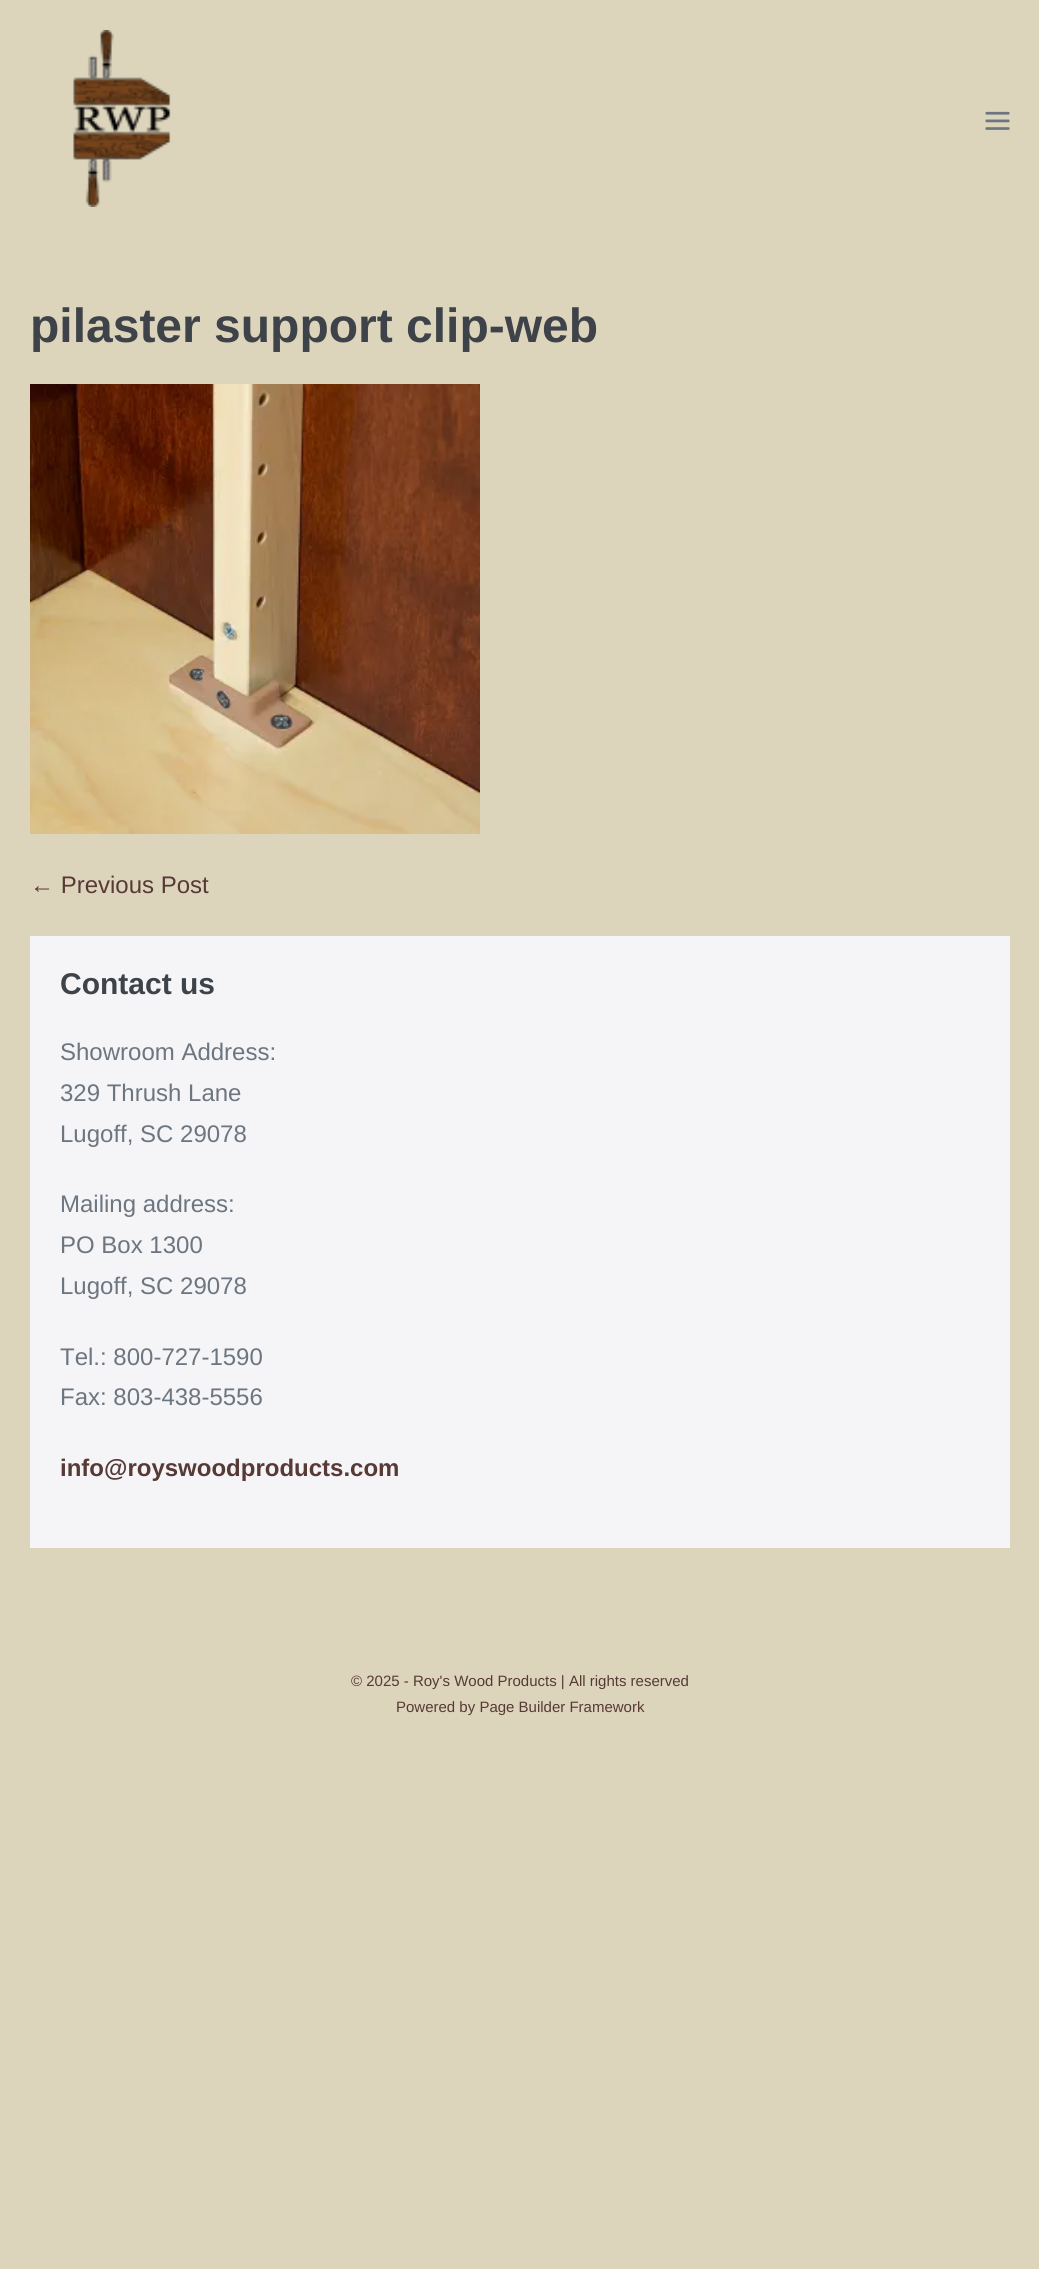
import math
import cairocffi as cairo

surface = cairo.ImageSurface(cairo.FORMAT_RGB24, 1039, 2269)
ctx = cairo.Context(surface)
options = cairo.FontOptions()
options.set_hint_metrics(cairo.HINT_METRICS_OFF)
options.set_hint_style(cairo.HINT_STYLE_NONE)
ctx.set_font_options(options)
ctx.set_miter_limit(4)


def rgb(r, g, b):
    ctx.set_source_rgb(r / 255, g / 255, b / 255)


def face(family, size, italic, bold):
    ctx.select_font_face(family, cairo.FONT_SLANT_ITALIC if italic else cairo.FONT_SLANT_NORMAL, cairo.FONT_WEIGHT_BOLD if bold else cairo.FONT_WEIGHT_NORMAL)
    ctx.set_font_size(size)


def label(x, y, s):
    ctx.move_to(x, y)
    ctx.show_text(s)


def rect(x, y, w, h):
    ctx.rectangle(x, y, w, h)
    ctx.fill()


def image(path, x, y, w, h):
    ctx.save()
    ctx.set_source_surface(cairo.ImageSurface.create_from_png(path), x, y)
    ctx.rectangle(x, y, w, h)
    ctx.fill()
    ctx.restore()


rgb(221, 212, 188)
ctx.paint()
image('image0.png', 73, 30, 98, 177)
image('image1.png', 985, 111, 25, 19)
face('Liberation Sans', 48, 0, 1)
rgb(62, 67, 73)
label(30, 342, 'pilaster support clip-web')
image('image2.png', 30, 384, 450, 450)
face('Liberation Sans', 24, 0, 0)
rgb(87, 57, 54)
label(30, 893, '← Previous Post')
rgb(245, 245, 247)
rect(30, 936, 980, 612)
face('Liberation Sans', 30, 0, 1)
rgb(62, 67, 73)
label(60, 994, 'Contact us')
face('Liberation Sans', 24, 0, 0)
rgb(109, 118, 128)
label(60, 1060, 'Showroom Address:')
label(60, 1101, '329 Thrush Lane')
label(60, 1142, 'Lugoff, SC 29078')
label(60, 1212, 'Mailing address:')
label(60, 1253, 'PO Box 1300')
label(60, 1294, 'Lugoff, SC 29078')
label(60, 1365, 'Tel.: 800-727-1590')
label(60, 1405, 'Fax: 803-438-5556')
face('Liberation Sans', 24, 0, 1)
rgb(87, 57, 54)
label(60, 1476, 'info@royswoodproducts.com')
face('Liberation Sans', 15, 0, 0)
label(351, 1686, '© 2025 - Roy\'s Wood Products | All rights reserved')
label(396, 1712, 'Powered by Page Builder Framework')
surface.write_to_png('render.png')
